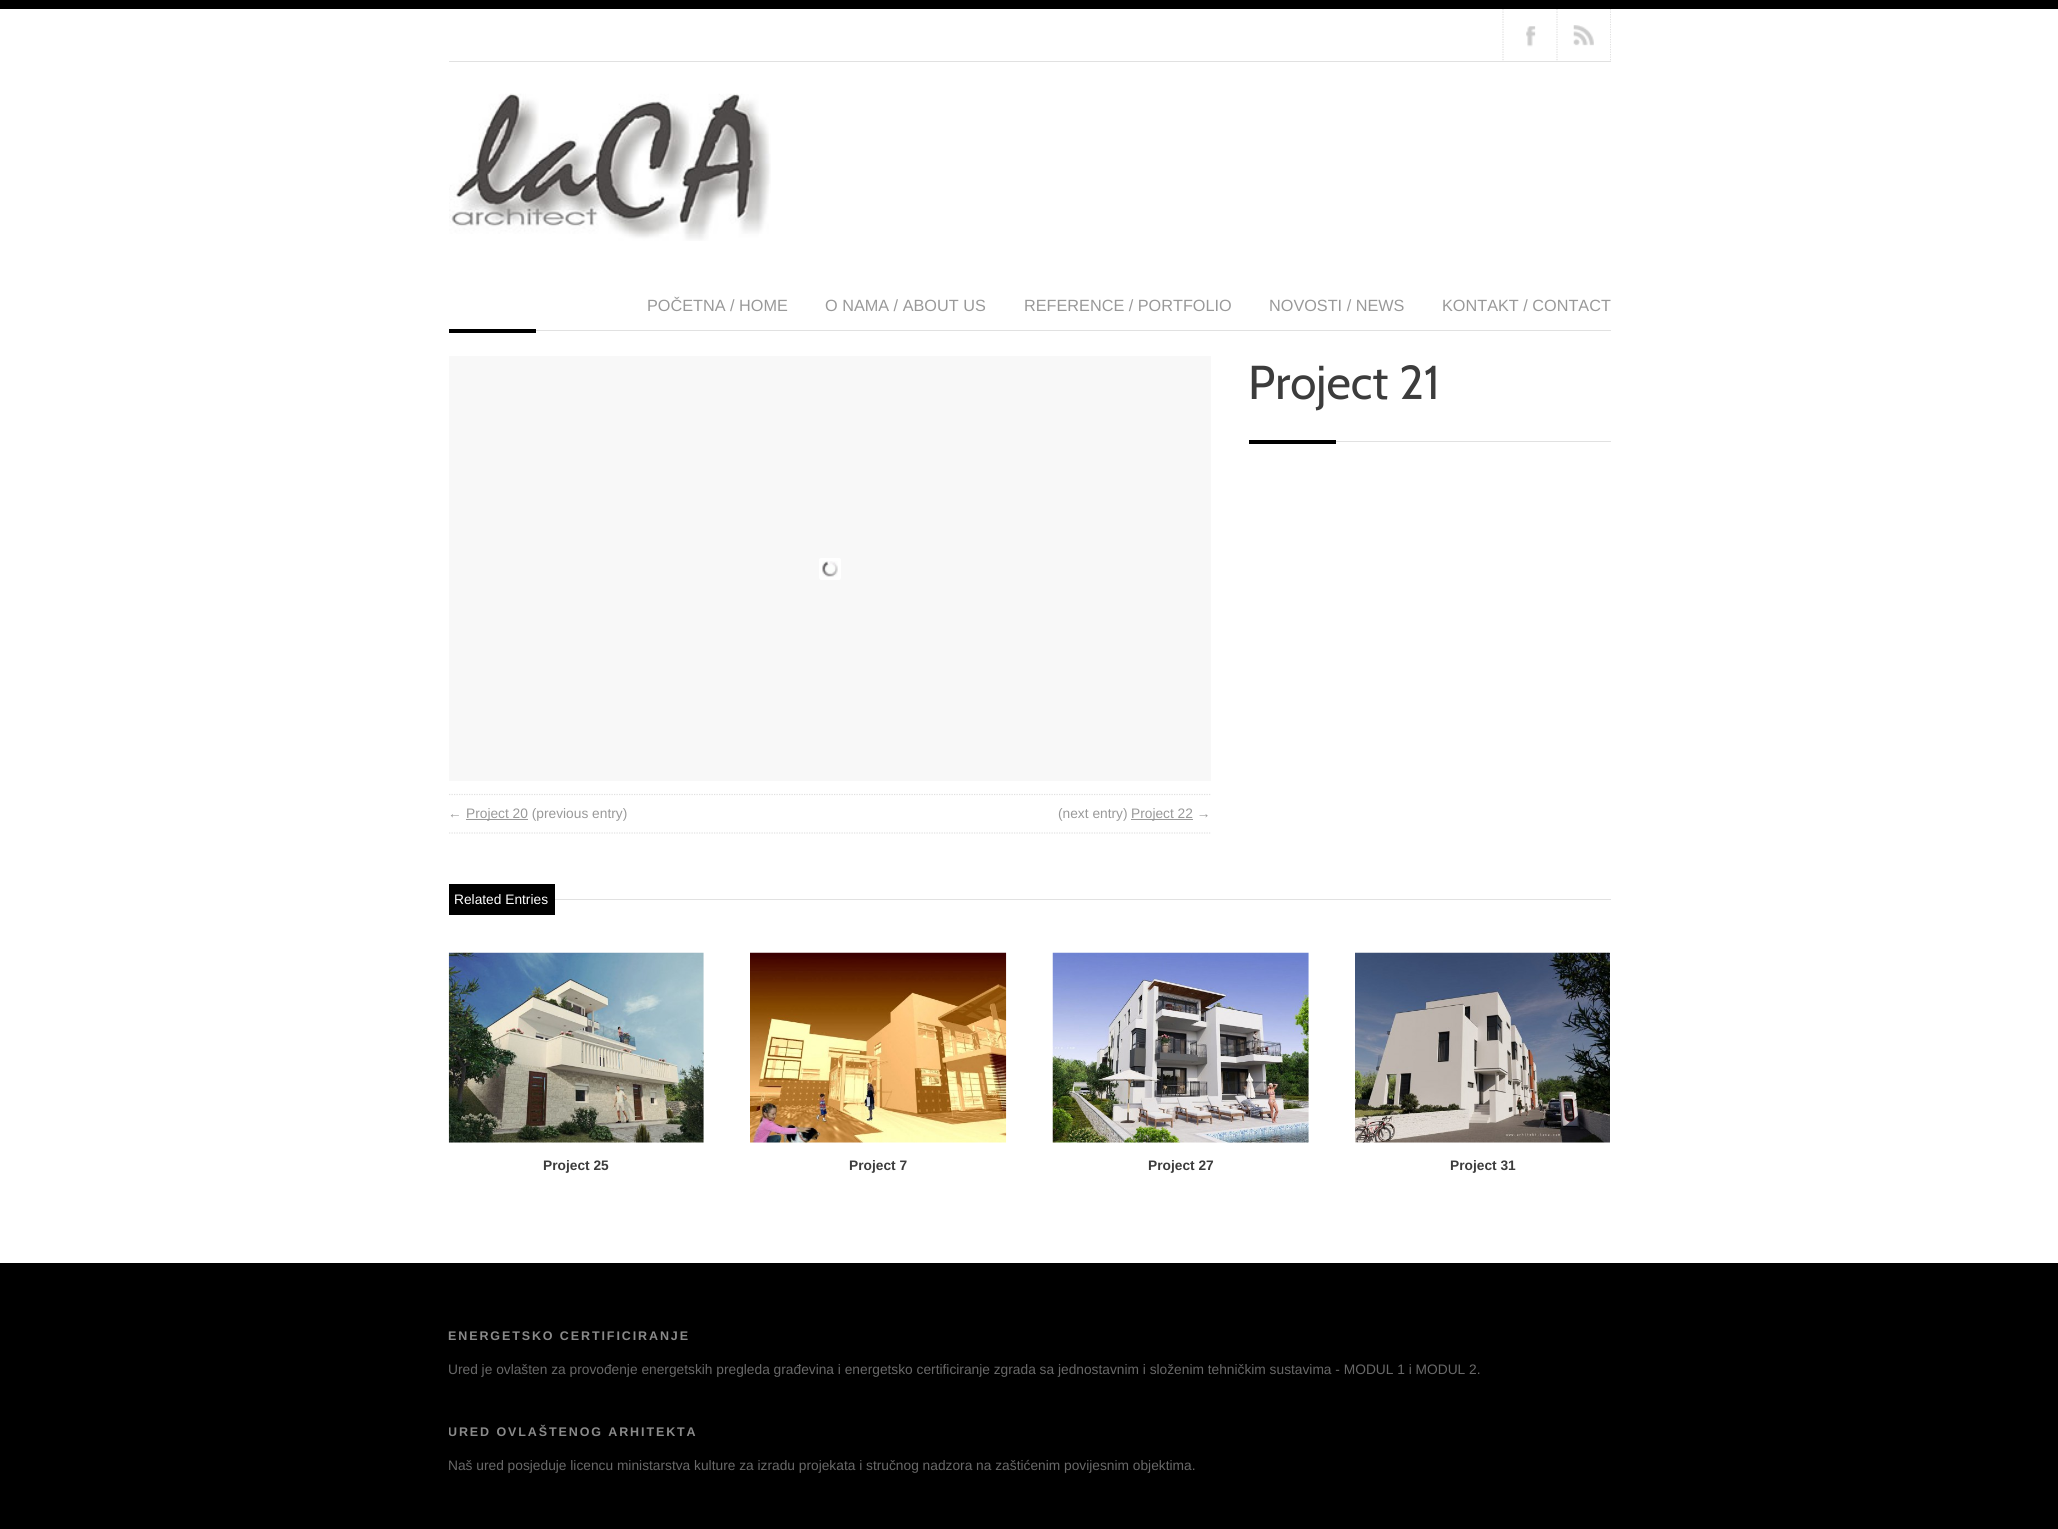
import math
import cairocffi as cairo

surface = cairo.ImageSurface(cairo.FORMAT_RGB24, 2058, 1529)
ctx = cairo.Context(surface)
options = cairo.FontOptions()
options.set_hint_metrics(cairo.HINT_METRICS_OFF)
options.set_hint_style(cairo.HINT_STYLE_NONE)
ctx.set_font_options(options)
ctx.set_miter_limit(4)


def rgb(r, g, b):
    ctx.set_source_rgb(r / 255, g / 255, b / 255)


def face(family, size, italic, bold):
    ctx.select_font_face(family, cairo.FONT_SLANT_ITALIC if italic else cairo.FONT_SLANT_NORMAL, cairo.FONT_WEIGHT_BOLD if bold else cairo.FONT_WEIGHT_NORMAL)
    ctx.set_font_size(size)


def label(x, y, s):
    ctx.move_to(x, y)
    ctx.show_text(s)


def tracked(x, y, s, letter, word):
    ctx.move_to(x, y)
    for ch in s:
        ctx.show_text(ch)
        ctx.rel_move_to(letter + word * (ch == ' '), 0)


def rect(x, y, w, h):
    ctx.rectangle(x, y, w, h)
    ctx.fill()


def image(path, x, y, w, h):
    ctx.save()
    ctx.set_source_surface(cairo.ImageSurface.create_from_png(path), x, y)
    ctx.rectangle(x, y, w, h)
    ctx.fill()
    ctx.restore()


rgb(255, 255, 255)
ctx.paint()
rgb(0, 0, 0)
rect(0, 0, 2058, 9)
rgb(225, 225, 225)
rect(449, 61, 1162, 1)
ctx.save()
ctx.rectangle(449, 9, 1162, 52)
ctx.clip()
ctx.new_path()
ctx.move_to(1610.5, 9)
ctx.line_to(1610.5, 61)
ctx.set_line_width(1.2)
ctx.set_dash([1.25, 1.25])
ctx.stroke()
ctx.restore()
image('image0.png', 1526, 26, 10, 21)
ctx.new_path()
ctx.move_to(1503, 9)
ctx.line_to(1503, 61)
ctx.set_line_width(1.2)
ctx.set_dash([1.25, 1.25])
ctx.stroke()
rgb(255, 255, 255)
rect(1609, 9, 1, 51)
image('image1.png', 1573, 25, 21, 21)
ctx.new_path()
ctx.move_to(1557, 9)
ctx.line_to(1557, 61)
rgb(225, 225, 225)
ctx.stroke()
rect(536, 330, 1075, 1)
image('image2.png', 449, 93, 322, 148)
face('Liberation Sans', 16.25, 0, 0)
rgb(153, 153, 153)
label(647, 311, 'POČETNA / HOME')
label(825, 311, 'O NAMA / ABOUT US')
label(1024, 311, 'REFERENCE / PORTFOLIO')
label(1269, 311, 'NOVOSTI / NEWS')
label(1442, 311, 'KONTAKT / CONTACT')
rgb(0, 0, 0)
rect(449, 329, 87, 4)
face('Cabin', 47.5, 0, 0)
rgb(60, 60, 60)
label(1248, 399, 'Project 21')
rgb(0, 0, 0)
rect(1249, 440, 87, 4)
rgb(225, 225, 225)
rect(1336, 441, 275, 1)
rgb(248, 248, 248)
rect(449, 356, 762, 425)
image('image3.png', 819, 558, 22, 22)
ctx.new_path()
ctx.move_to(449, 794.5)
ctx.line_to(1211, 794.5)
rgb(225, 225, 225)
ctx.stroke()
ctx.new_path()
ctx.move_to(449, 833)
ctx.line_to(1211, 833)
ctx.stroke()
face('Liberation Sans', 13.75, 0, 0)
rgb(153, 153, 153)
label(448, 818, '←')
rect(466, 819, 62, 1)
label(466, 818, 'Project 20 (previous entry)')
label(1058, 818, '(next entry)')
rect(1131, 819, 62, 1)
label(1131, 818, 'Project 22 →')
rgb(0, 0, 0)
rect(449, 884, 106, 31)
rgb(255, 255, 255)
label(454, 904, 'Related Entries')
rgb(225, 225, 225)
rect(555, 899, 1056, 1)
image('image4.png', 448, 952, 256, 191)
face('Liberation Sans', 13.75, 0, 1)
rgb(60, 60, 60)
label(543, 1170, 'Project 25')
image('image5.png', 750, 952, 257, 191)
label(849, 1170, 'Project 7')
image('image6.png', 1052, 952, 257, 191)
label(1148, 1170, 'Project 27')
image('image7.png', 1355, 952, 255, 191)
label(1450, 1170, 'Project 31')
rgb(0, 0, 0)
rect(0, 1263, 2058, 266)
face('Liberation Sans', 12.5, 0, 1)
rgb(138, 138, 138)
tracked(448, 1340, 'ENERGETSKO CERTIFICIRANJE', 1.9, 0)
face('Liberation Sans', 13.75, 0, 0)
rgb(104, 104, 104)
label(448, 1374, 'Ured je ovlašten za provođenje energetskih pregleda građevina i energetsko certificiranje zgrada sa jednostavnim i složenim tehničkim sustavima - MODUL 1 i MODUL 2.')
ctx.save()
ctx.rectangle(449, 1384, 1162, 95)
ctx.clip()
face('Liberation Sans', 12.5, 0, 1)
rgb(138, 138, 138)
tracked(448, 1436, 'URED OVLAŠTENOG ARHITEKTA', 1.9, 0)
ctx.restore()
label(448, 1470, 'Naš ured posjeduje licencu ministarstva kulture za izradu projekata i stručnog nadzora na zaštićenim povijesnim objektima.')
surface.write_to_png('render.png')
